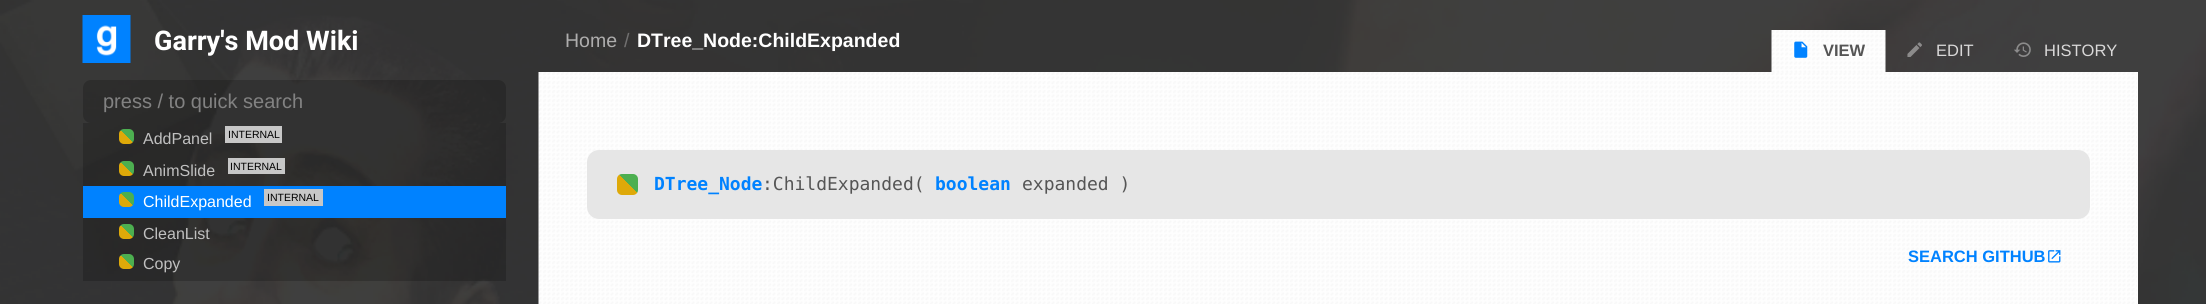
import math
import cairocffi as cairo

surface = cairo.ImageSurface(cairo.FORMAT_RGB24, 2206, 304)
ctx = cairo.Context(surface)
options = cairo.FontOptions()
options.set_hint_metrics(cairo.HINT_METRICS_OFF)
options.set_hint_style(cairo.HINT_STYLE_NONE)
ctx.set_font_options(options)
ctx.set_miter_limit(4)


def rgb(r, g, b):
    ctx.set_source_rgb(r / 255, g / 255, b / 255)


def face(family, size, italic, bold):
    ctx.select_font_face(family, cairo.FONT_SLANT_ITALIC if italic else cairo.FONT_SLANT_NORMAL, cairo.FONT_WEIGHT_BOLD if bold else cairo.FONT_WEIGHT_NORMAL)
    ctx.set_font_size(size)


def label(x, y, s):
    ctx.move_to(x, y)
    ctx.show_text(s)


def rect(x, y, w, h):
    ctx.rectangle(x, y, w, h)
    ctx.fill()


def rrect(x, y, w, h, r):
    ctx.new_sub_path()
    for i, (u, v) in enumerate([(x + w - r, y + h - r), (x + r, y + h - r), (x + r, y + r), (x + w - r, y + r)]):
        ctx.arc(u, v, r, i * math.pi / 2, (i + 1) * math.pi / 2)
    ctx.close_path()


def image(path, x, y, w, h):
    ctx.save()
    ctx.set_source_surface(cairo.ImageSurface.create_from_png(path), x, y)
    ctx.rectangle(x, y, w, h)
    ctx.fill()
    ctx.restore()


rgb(255, 255, 255)
ctx.paint()
image('image0.png', 0, 0, 2206, 304)
image('image1.png', 82, 15, 49, 48)
face('Heebo', 27, 0, 1)
rgb(255, 255, 255)
label(154, 50, 'Garry\'s Mod Wiki')
ctx.set_source_rgba(0, 0, 0, 0.2)
rrect(83, 80, 423, 43, 8)
ctx.fill()
face('Liberation Sans', 20, 0, 0)
rgb(130, 130, 130)
label(103, 108, 'press / to quick search')
ctx.set_source_rgba(0, 0, 0, 0.2)
rect(83, 123, 423, 158)
gradient = cairo.LinearGradient(119, 144, 134, 129)
gradient.add_color_stop_rgba(0.5, 0.871, 0.663, 0.035, 1)
gradient.add_color_stop_rgba(0.5, 0.298, 0.686, 0.314, 1)
ctx.set_source(gradient)
rrect(119, 129, 15, 15, 5)
ctx.fill()
face('Liberation Sans', 16, 0, 0)
rgb(192, 192, 192)
label(143, 144, 'AddPanel')
rgb(199, 199, 199)
rect(225, 126, 57, 17)
face('Liberation Sans', 10.5, 0, 0)
rgb(0, 0, 0)
label(228, 138, 'INTERNAL')
gradient = cairo.LinearGradient(119, 176, 134, 161)
gradient.add_color_stop_rgba(0.5, 0.871, 0.663, 0.035, 1)
gradient.add_color_stop_rgba(0.5, 0.298, 0.686, 0.314, 1)
ctx.set_source(gradient)
rrect(119, 161, 15, 15, 5)
ctx.fill()
face('Liberation Sans', 16, 0, 0)
rgb(192, 192, 192)
label(143, 176, 'AnimSlide')
rgb(199, 199, 199)
rect(228, 158, 57, 16)
face('Liberation Sans', 10.5, 0, 0)
rgb(0, 0, 0)
label(230, 170, 'INTERNAL')
rgb(0, 130, 255)
rect(83, 186, 423, 32)
gradient = cairo.LinearGradient(119, 207, 134, 192)
gradient.add_color_stop_rgba(0.5, 0.871, 0.663, 0.035, 1)
gradient.add_color_stop_rgba(0.5, 0.298, 0.686, 0.314, 1)
ctx.set_source(gradient)
rrect(119, 192, 15, 15, 5)
ctx.fill()
face('Liberation Sans', 16, 0, 0)
rgb(255, 255, 255)
label(143, 207, 'ChildExpanded')
rgb(199, 199, 199)
rect(264, 189, 59, 17)
face('Liberation Sans', 10.5, 0, 0)
rgb(0, 0, 0)
label(267, 201, 'INTERNAL')
gradient = cairo.LinearGradient(119, 239, 134, 224)
gradient.add_color_stop_rgba(0.5, 0.871, 0.663, 0.035, 1)
gradient.add_color_stop_rgba(0.5, 0.298, 0.686, 0.314, 1)
ctx.set_source(gradient)
rrect(119, 224, 15, 15, 5)
ctx.fill()
face('Liberation Sans', 16, 0, 0)
rgb(192, 192, 192)
label(143, 239, 'CleanList')
gradient = cairo.LinearGradient(119, 269, 134, 254)
gradient.add_color_stop_rgba(0.5, 0.871, 0.663, 0.035, 1)
gradient.add_color_stop_rgba(0.5, 0.298, 0.686, 0.314, 1)
ctx.set_source(gradient)
rrect(119, 254, 15, 15, 5)
ctx.fill()
rgb(192, 192, 192)
label(143, 269, 'Copy')
face('Liberation Sans', 19.5, 0, 0)
rgb(174, 173, 173)
label(565, 47, 'Home')
rgb(113, 112, 112)
label(624, 47, '/')
face('Liberation Sans', 19.5, 0, 1)
rgb(255, 255, 255)
label(637, 47, 'DTree_Node:ChildExpanded')
image('image2.png', 1771, 30, 115, 42)
image('image3.png', 1794, 41, 14, 17)
face('Liberation Sans', 16.5, 0, 1)
rgb(85, 85, 85)
label(1823, 56, 'VIEW')
image('image4.png', 1907, 42, 15, 15)
face('Liberation Sans', 16.5, 0, 0)
rgb(217, 216, 216)
label(1936, 56, 'EDIT')
image('image5.png', 2014, 42, 17, 15)
label(2044, 56, 'HISTORY')
rgb(255, 255, 255)
rect(2137, 72, 1, 232)
image('image6.png', 538, 72, 1599, 232)
rgb(230, 230, 230)
rrect(587, 150, 1503, 69, 12)
ctx.fill()
gradient = cairo.LinearGradient(617, 195, 638, 174)
gradient.add_color_stop_rgba(0.53, 0.871, 0.663, 0.035, 1)
gradient.add_color_stop_rgba(0.53, 0.298, 0.686, 0.314, 1)
ctx.set_source(gradient)
rrect(617, 174, 21, 21, 5)
ctx.fill()
face('DejaVu Sans Mono', 18, 0, 1)
rgb(0, 130, 255)
label(654, 190, 'DTree_Node')
face('DejaVu Sans Mono', 18, 0, 0)
rgb(85, 85, 85)
label(762, 190, ':ChildExpanded(')
face('DejaVu Sans Mono', 18, 0, 1)
rgb(0, 130, 255)
label(935, 190, 'boolean')
face('DejaVu Sans Mono', 18, 0, 0)
rgb(85, 85, 85)
label(1022, 190, 'expanded )')
face('Liberation Sans', 16.5, 0, 1)
rgb(0, 130, 255)
label(1908, 262, 'SEARCH GITHUB')
image('image7.png', 2048, 250, 13, 13)
surface.write_to_png('render.png')
